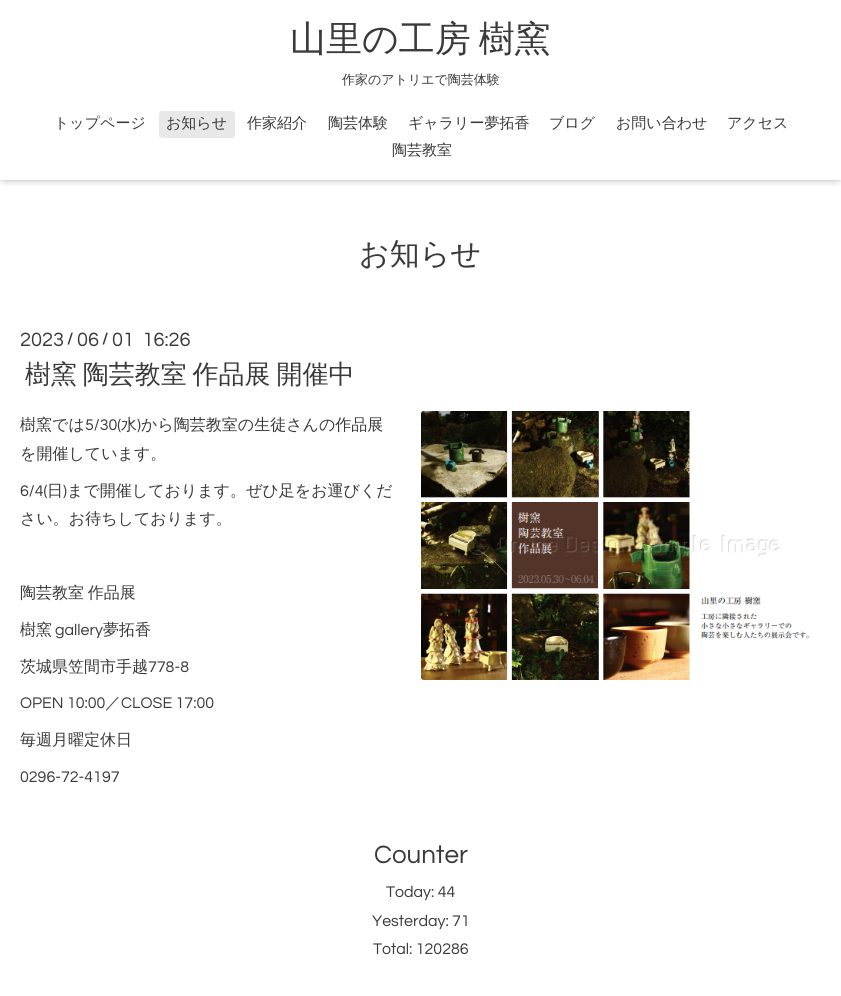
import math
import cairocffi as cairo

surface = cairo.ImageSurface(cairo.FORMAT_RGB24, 841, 996)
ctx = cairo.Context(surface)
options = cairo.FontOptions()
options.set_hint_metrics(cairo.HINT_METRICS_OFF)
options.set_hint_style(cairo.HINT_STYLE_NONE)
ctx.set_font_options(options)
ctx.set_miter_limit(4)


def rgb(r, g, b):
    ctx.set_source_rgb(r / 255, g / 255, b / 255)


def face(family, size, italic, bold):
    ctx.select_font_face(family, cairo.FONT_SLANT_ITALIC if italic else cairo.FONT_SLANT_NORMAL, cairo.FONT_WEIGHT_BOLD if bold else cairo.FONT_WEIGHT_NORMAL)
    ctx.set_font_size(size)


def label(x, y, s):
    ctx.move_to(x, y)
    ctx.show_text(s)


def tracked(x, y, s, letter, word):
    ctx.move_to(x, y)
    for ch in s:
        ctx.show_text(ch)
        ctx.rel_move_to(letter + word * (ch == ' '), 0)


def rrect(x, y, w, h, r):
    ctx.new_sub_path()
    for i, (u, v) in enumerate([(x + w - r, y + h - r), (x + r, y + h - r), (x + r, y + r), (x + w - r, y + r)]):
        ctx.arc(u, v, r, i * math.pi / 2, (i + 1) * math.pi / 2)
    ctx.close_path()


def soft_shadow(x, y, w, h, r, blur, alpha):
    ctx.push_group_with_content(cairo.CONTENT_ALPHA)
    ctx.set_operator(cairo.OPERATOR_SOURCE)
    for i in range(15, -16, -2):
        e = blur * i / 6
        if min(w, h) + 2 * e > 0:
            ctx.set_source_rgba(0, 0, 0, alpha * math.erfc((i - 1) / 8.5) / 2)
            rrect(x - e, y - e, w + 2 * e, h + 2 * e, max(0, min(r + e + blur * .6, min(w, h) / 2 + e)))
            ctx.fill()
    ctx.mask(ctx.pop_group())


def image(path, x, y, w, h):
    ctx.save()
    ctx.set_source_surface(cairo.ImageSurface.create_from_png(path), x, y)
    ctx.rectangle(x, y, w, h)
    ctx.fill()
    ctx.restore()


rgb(255, 255, 255)
ctx.paint()
ctx.save()
ctx.rectangle(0, 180, 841, 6)
ctx.clip()
rgb(0, 0, 0)
soft_shadow(4, -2, 833, 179, 0, 5, 0.6)
ctx.restore()
face('WenQuanYi Zen Hei Medium', 36, 0, 0)
rgb(58, 58, 58)
tracked(290, 51, '山里の工房 樹窯', 0, -3)
face('WenQuanYi Zen Hei Medium', 13, 0, 0)
label(342, 84, '作家のアトリエで陶芸体験')
face('WenQuanYi Zen Hei Medium', 15, 0, 0)
label(54, 128, 'トップページ')
rgb(232, 232, 232)
rrect(159, 111, 76, 27, 3)
ctx.fill()
rgb(58, 58, 58)
label(166, 128, 'お知らせ')
label(247, 128, '作家紹介')
label(328, 128, '陶芸体験')
label(408, 128, 'ギャラリー夢拓香')
label(549, 128, 'ブログ')
label(616, 128, 'お問い合わせ')
label(727, 128, 'アクセス')
label(392, 155, '陶芸教室')
face('WenQuanYi Zen Hei Medium', 30, 0, 0)
label(359, 264, 'お知らせ')
face('Questrial', 20, 0, 0)
label(20, 346, '2023')
face('Questrial', 16, 0, 1)
label(67, 344, '/')
face('Questrial', 20, 0, 0)
label(77, 346, '06')
face('Questrial', 16, 0, 1)
label(102, 344, '/')
face('Questrial', 20, 0, 0)
label(112, 346, '01  16:26')
face('WenQuanYi Zen Hei Medium', 26, 0, 0)
tracked(25, 383, '樹窯 陶芸教室 作品展 開催中', 0, -2)
face('WenQuanYi Zen Hei Medium', 16, 0, 0)
label(20, 430, '樹窯では')
face('Questrial', 16, 0, 0)
label(85, 430, '5/30(')
face('WenQuanYi Zen Hei Medium', 16, 0, 0)
label(121, 430, '水')
face('Questrial', 16, 0, 0)
label(137, 430, ')')
face('WenQuanYi Zen Hei Medium', 16, 0, 0)
label(141, 430, 'から陶芸教室の生徒さんの作品展')
label(20, 459, 'を開催しています。')
face('Questrial', 16, 0, 0)
label(20, 496, '6/4(')
face('WenQuanYi Zen Hei Medium', 16, 0, 0)
label(47, 496, '日')
face('Questrial', 16, 0, 0)
label(63, 496, ')')
face('WenQuanYi Zen Hei Medium', 16, 0, 0)
label(67, 496, 'まで開催しております。ぜひ足をお運びくだ')
label(20, 524, 'さい。お待ちしております。')
tracked(20, 598, '陶芸教室 作品展', 0, -1)
label(20, 635, '樹窯')
face('Questrial', 16, 0, 0)
label(55, 635, 'gallery')
face('WenQuanYi Zen Hei Medium', 16, 0, 0)
label(103, 635, '夢拓香')
label(20, 672, '茨城県笠間市手越')
face('Questrial', 16, 0, 0)
label(148, 672, '778-8')
label(20, 708, 'OPEN 10:00')
face('WenQuanYi Zen Hei Medium', 16, 0, 0)
label(105, 708, '／')
face('Questrial', 16, 0, 0)
label(121, 708, 'CLOSE 17:00')
face('WenQuanYi Zen Hei Medium', 16, 0, 0)
label(20, 745, '毎週月曜定休日')
face('Questrial', 16, 0, 0)
label(20, 782, '0296-72-4197')
image('image0.png', 421, 411, 388, 269)
face('Questrial', 26, 0, 0)
label(374, 863, 'Counter')
face('Questrial', 16, 0, 0)
label(386, 897, 'Today: 44')
label(372, 926, 'Yesterday: 71')
label(373, 954, 'Total: 120286')
surface.write_to_png('render.png')
